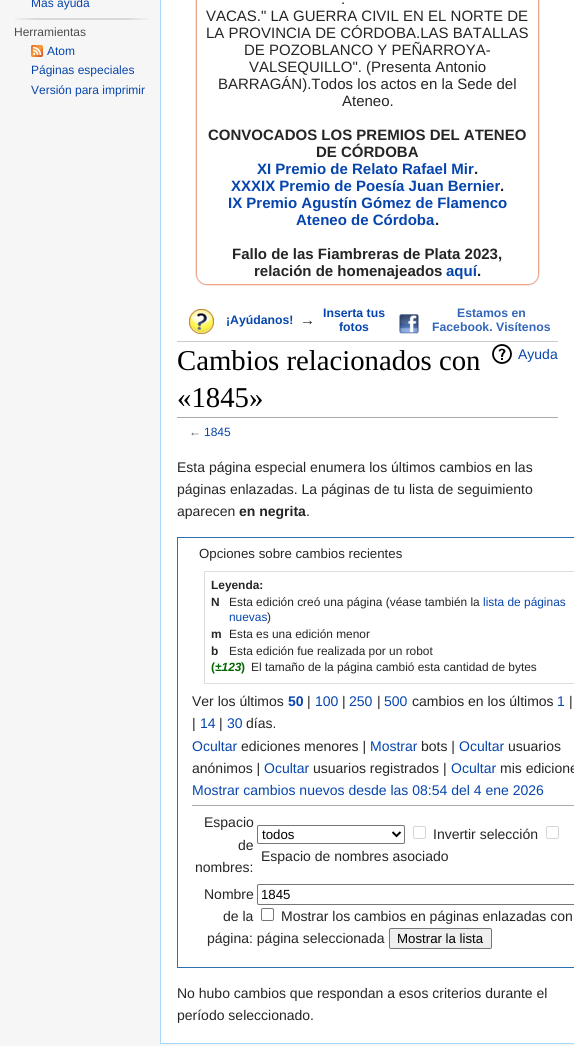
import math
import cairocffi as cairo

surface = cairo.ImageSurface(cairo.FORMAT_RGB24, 574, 1046)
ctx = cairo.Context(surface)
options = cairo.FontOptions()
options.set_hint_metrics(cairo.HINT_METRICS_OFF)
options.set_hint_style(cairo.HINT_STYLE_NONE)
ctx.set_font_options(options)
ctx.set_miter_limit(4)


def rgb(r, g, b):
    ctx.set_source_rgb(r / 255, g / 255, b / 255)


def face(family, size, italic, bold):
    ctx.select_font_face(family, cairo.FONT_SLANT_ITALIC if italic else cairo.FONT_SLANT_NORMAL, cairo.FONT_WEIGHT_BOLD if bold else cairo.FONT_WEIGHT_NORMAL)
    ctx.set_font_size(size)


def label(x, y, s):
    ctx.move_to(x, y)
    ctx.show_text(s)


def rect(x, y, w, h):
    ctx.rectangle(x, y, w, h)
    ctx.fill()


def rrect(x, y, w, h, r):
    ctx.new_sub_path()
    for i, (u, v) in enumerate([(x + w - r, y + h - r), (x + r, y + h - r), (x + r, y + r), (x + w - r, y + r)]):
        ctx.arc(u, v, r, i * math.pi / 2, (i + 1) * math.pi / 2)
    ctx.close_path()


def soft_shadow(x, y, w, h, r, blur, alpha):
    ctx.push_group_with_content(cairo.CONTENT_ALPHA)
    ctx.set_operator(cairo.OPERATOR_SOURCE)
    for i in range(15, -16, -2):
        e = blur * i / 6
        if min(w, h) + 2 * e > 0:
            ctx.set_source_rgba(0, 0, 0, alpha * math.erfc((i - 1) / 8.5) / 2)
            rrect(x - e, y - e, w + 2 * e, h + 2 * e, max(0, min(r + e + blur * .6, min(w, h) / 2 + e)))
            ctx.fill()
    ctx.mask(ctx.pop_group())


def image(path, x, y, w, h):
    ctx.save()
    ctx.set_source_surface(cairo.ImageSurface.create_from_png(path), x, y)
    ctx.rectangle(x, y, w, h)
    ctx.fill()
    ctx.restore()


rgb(246, 246, 246)
ctx.paint()
face('Liberation Sans', 12, 0, 0)
rgb(6, 69, 173)
label(31, 7, 'Más ayuda')
image('image0.png', 14, 18, 135, 2)
rgb(77, 77, 77)
label(14, 36, 'Herramientas')
image('image1.png', 31, 45, 12, 12)
rgb(6, 69, 173)
label(47, 55, 'Atom')
label(31, 74, 'Páginas especiales')
label(31, 94, 'Versión para imprimir')
rgb(255, 255, 255)
rect(161, 0, 413, 1043)
rgb(167, 215, 249)
rect(160, 1043, 414, 1)
rect(160, 0, 1, 1044)
ctx.save()
ctx.set_fill_rule(cairo.FILL_RULE_EVEN_ODD)
ctx.new_path()
ctx.move_to(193, 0)
ctx.line_to(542, 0)
ctx.line_to(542, 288)
ctx.line_to(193, 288)
ctx.close_path()
ctx.move_to(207, -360)
ctx.line_to(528, -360)
ctx.curve_to(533.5, -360, 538, -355.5, 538, -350)
ctx.line_to(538, 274)
ctx.curve_to(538, 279.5, 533.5, 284, 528, 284)
ctx.line_to(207, 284)
ctx.curve_to(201.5, 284, 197, 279.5, 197, 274)
ctx.line_to(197, -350)
ctx.curve_to(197, -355.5, 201.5, -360, 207, -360)
ctx.close_path()
ctx.clip()
rgb(233, 150, 122)
soft_shadow(196, -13, 343, 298, 11, 0.5, 1)
ctx.restore()
face('Liberation Sans', 15, 0, 0)
rgb(37, 37, 37)
label(341, 4, '.')
label(206, 21, 'VACAS." LA GUERRA CIVIL EN EL NORTE DE')
label(206, 38, 'LA PROVINCIA DE CÓRDOBA.LAS BATALLAS')
label(244, 55, 'DE POZOBLANCO Y PEÑARROYA-')
label(249, 72, 'VALSEQUILLO". (Presenta Antonio')
label(218, 89, 'BARRAGÁN).Todos los actos en la Sede del')
label(342, 106, 'Ateneo.')
face('Liberation Sans', 15, 0, 1)
label(208, 140, 'CONVOCADOS LOS PREMIOS DEL ATENEO')
label(316, 157, 'DE CÓRDOBA')
rgb(6, 69, 173)
label(257, 174, 'XI Premio de Relato Rafael Mir')
rgb(37, 37, 37)
label(474, 174, '.')
rgb(6, 69, 173)
label(231, 191, 'XXXIX Premio de Poesía Juan Bernier')
rgb(37, 37, 37)
label(500, 191, '.')
rgb(6, 69, 173)
label(228, 208, 'IX Premio Agustín Gómez de Flamenco')
label(296, 225, 'Ateneo de Córdoba')
rgb(37, 37, 37)
label(435, 225, '.')
label(232, 259, 'Fallo de las Fiambreras de Plata 2023,')
label(254, 276, 'relación de homenajeados')
rgb(6, 69, 173)
label(446, 276, 'aquí')
rgb(37, 37, 37)
label(477, 276, '.')
rgb(204, 204, 204)
rect(177, 341, 381, 1)
image('image2.png', 189, 309, 25, 25)
face('Liberation Sans', 12.25, 0, 1)
rgb(6, 69, 173)
label(226, 324, '¡Ayúdanos!')
face('Liberation Sans', 15, 0, 1)
rgb(37, 37, 37)
label(300, 325, '→')
face('Liberation Sans', 12.25, 0, 1)
rgb(6, 69, 173)
label(323, 317, 'Inserta tus')
label(339, 331, 'fotos')
image('image3.png', 399, 314, 20, 20)
rgb(51, 102, 187)
label(457, 317, 'Estamos en')
label(432, 331, 'Facebook. Visítenos')
rgb(170, 170, 170)
rect(177, 417, 381, 1)
face('Liberation Serif', 28.75, 0, 0)
rgb(0, 0, 0)
label(177, 370, 'Cambios relacionados con')
label(177, 407, '«1845»')
image('image4.png', 492, 344, 20, 20)
face('Liberation Sans', 14, 0, 0)
rgb(6, 69, 173)
label(518, 359, 'Ayuda')
face('Liberation Sans', 12, 0, 0)
rgb(84, 84, 84)
label(189, 436, '←')
rgb(6, 69, 173)
label(204, 436, '1845')
face('Liberation Sans', 14, 0, 0)
rgb(37, 37, 37)
label(177, 472, 'Esta página especial enumera los últimos cambios en las')
label(177, 494, 'páginas enlazadas. La páginas de tu lista de seguimiento')
label(177, 516, 'aparecen')
face('Liberation Sans', 14, 0, 1)
label(239, 516, 'en negrita')
face('Liberation Sans', 14, 0, 0)
label(306, 516, '.')
ctx.rectangle(177.5, 537.5, 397, 430)
rgb(47, 111, 171)
ctx.set_line_width(1)
ctx.stroke()
face('Liberation Sans', 13.25, 0, 0)
rgb(37, 37, 37)
label(199, 558, 'Opciones sobre cambios recientes')
ctx.rectangle(204.5, 571.5, 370, 112)
rgb(221, 221, 221)
ctx.stroke()
face('Liberation Sans', 11.9, 0, 1)
rgb(37, 37, 37)
label(211, 589, 'Leyenda:')
label(211, 606, 'N')
face('Liberation Sans', 11.9, 0, 0)
label(229, 606, 'Esta edición creó una página (véase también la')
rgb(6, 69, 173)
label(483, 606, 'lista de páginas')
label(229, 621, 'nuevas')
rgb(37, 37, 37)
label(267, 621, ')')
face('Liberation Sans', 11.9, 0, 1)
label(211, 638, 'm')
face('Liberation Sans', 11.9, 0, 0)
label(229, 638, 'Esta es una edición menor')
face('Liberation Sans', 11.9, 0, 1)
label(211, 655, 'b')
face('Liberation Sans', 11.9, 0, 0)
label(229, 655, 'Esta edición fue realizada por un robot')
face('Liberation Sans', 11.9, 0, 1)
rgb(0, 100, 0)
label(211, 671, '(')
face('Liberation Sans', 11.9, 1, 1)
label(215, 671, '±123')
face('Liberation Sans', 11.9, 0, 1)
label(241, 671, ')')
face('Liberation Sans', 11.9, 0, 0)
rgb(37, 37, 37)
label(251, 671, 'El tamaño de la página cambió esta cantidad de bytes')
face('Liberation Sans', 14, 0, 0)
label(192, 706, 'Ver los últimos')
face('Liberation Sans', 14, 0, 1)
rgb(6, 69, 173)
label(288, 706, '50')
face('Liberation Sans', 14, 0, 0)
rgb(37, 37, 37)
label(307, 706, '|')
rgb(6, 69, 173)
label(315, 706, '100')
rgb(37, 37, 37)
label(342, 706, '|')
rgb(6, 69, 173)
label(349, 706, '250')
rgb(37, 37, 37)
label(377, 706, '|')
rgb(6, 69, 173)
label(384, 706, '500')
rgb(37, 37, 37)
label(412, 706, 'cambios en los últimos')
rgb(6, 69, 173)
label(557, 706, '1')
rgb(37, 37, 37)
label(569, 706, '|')
label(192, 728, '|')
rgb(6, 69, 173)
label(200, 728, '14')
rgb(37, 37, 37)
label(219, 728, '|')
rgb(6, 69, 173)
label(227, 728, '30')
rgb(37, 37, 37)
label(246, 728, 'días.')
rgb(6, 69, 173)
label(192, 751, 'Ocultar')
rgb(37, 37, 37)
label(241, 751, 'ediciones menores |')
rgb(6, 69, 173)
label(370, 751, 'Mostrar')
rgb(37, 37, 37)
label(421, 751, 'bots |')
rgb(6, 69, 173)
label(459, 751, 'Ocultar')
rgb(37, 37, 37)
label(508, 751, 'usuarios')
label(192, 773, 'anónimos |')
rgb(6, 69, 173)
label(264, 773, 'Ocultar')
rgb(37, 37, 37)
label(313, 773, 'usuarios registrados |')
rgb(6, 69, 173)
label(451, 773, 'Ocultar')
rgb(37, 37, 37)
label(500, 773, 'mis edicione')
rgb(6, 69, 173)
label(192, 795, 'Mostrar cambios nuevos desde las 08:54 del 4 ene 2026')
rgb(170, 170, 170)
rect(192, 805, 382, 1)
rgb(37, 37, 37)
label(204, 827, 'Espacio')
label(238, 850, 'de')
label(195, 872, 'nombres:')
rrect(257.5, 825.5, 147, 18, 1.5)
rgb(118, 118, 118)
ctx.stroke()
ctx.new_path()
ctx.move_to(392.5, 832)
ctx.line_to(396.5, 836)
ctx.line_to(400.5, 832)
rgb(0, 0, 0)
ctx.set_line_width(2)
ctx.stroke()
face('Liberation Sans', 13.25, 0, 0)
label(262, 839, 'todos')
rrect(413.5, 826.5, 12, 12, 1.5)
rgb(214, 214, 214)
ctx.set_line_width(1)
ctx.stroke()
face('Liberation Sans', 14, 0, 0)
rgb(37, 37, 37)
label(433, 839, 'Invertir selección')
rrect(546.5, 826.5, 12, 12, 1.5)
rgb(214, 214, 214)
ctx.stroke()
rgb(37, 37, 37)
label(261, 861, 'Espacio de nombres asociado')
label(204, 899, 'Nombre')
label(223, 921, 'de la')
label(207, 943, 'página: página seleccionada')
rrect(257.5, 884.5, 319, 20, 1.5)
rgb(118, 118, 118)
ctx.stroke()
face('Liberation Sans', 13.25, 0, 0)
rgb(0, 0, 0)
label(261, 899, '1845')
rrect(261.5, 908.5, 12, 12, 1.5)
rgb(118, 118, 118)
ctx.stroke()
face('Liberation Sans', 14, 0, 0)
rgb(37, 37, 37)
label(281, 921, 'Mostrar los cambios en páginas enlazadas con')
rgb(239, 239, 239)
rrect(389.5, 928.5, 102, 20, 1.5)
ctx.fill_preserve()
rgb(118, 118, 118)
ctx.stroke()
face('Liberation Sans', 13.25, 0, 0)
rgb(0, 0, 0)
label(397, 943, 'Mostrar la lista')
face('Liberation Sans', 14, 0, 0)
rgb(37, 37, 37)
label(177, 998, 'No hubo cambios que respondan a esos criterios durante el')
label(177, 1020, 'período seleccionado.')
surface.write_to_png('render.png')
